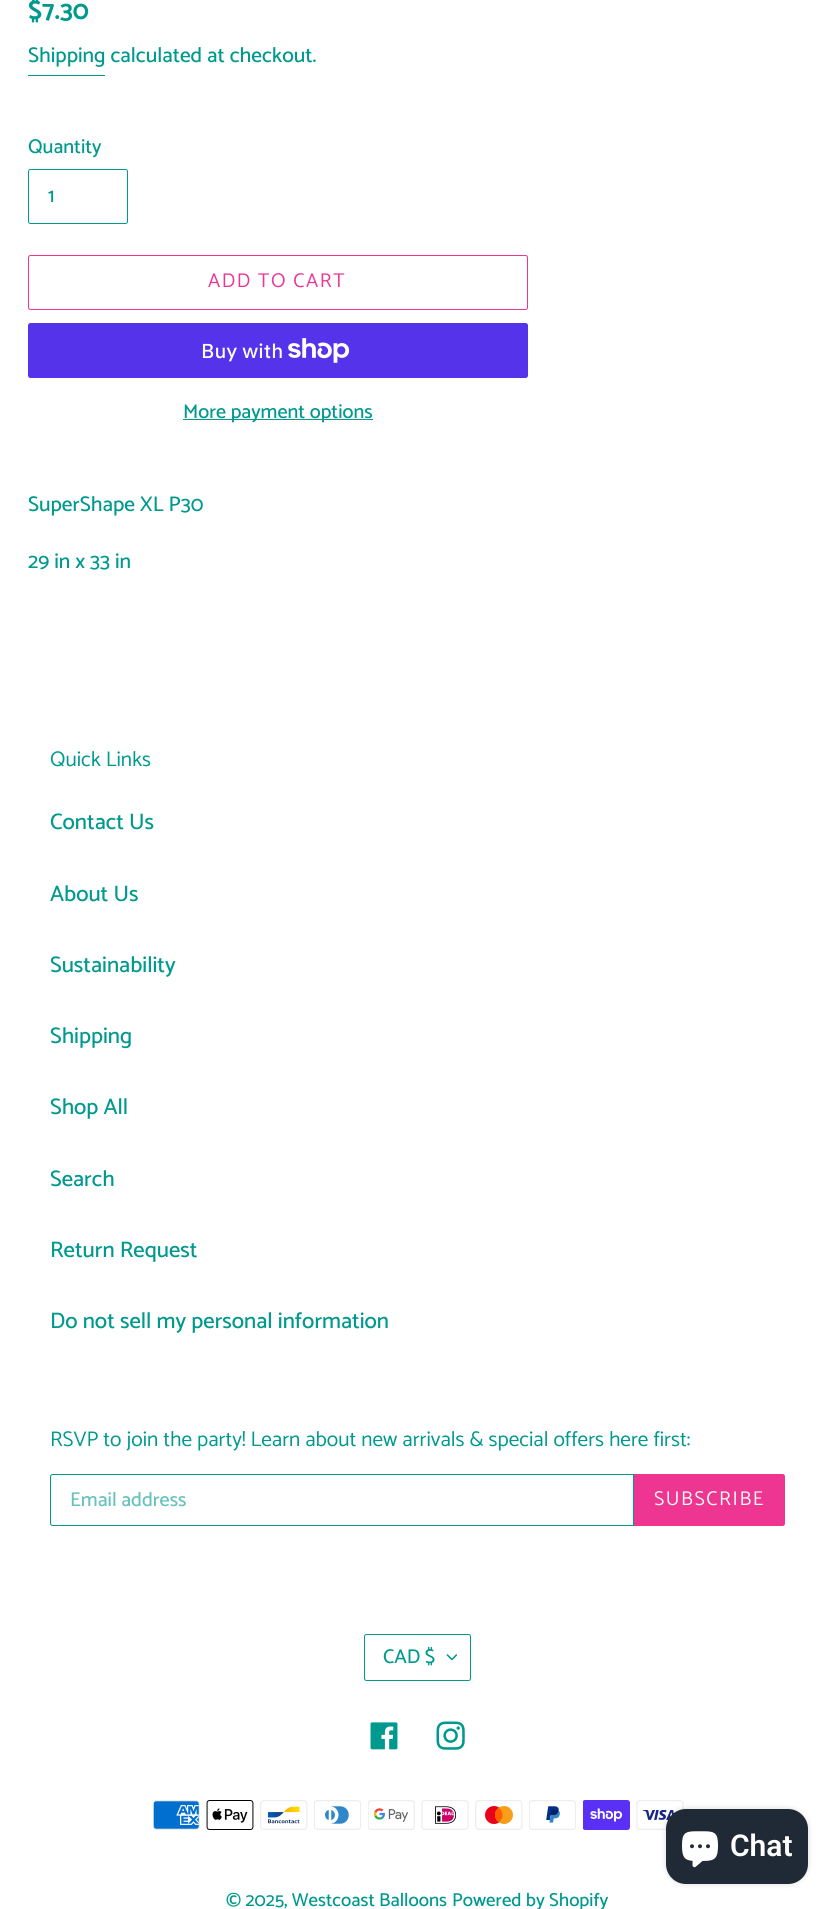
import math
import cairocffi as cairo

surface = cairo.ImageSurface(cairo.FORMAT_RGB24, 834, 1909)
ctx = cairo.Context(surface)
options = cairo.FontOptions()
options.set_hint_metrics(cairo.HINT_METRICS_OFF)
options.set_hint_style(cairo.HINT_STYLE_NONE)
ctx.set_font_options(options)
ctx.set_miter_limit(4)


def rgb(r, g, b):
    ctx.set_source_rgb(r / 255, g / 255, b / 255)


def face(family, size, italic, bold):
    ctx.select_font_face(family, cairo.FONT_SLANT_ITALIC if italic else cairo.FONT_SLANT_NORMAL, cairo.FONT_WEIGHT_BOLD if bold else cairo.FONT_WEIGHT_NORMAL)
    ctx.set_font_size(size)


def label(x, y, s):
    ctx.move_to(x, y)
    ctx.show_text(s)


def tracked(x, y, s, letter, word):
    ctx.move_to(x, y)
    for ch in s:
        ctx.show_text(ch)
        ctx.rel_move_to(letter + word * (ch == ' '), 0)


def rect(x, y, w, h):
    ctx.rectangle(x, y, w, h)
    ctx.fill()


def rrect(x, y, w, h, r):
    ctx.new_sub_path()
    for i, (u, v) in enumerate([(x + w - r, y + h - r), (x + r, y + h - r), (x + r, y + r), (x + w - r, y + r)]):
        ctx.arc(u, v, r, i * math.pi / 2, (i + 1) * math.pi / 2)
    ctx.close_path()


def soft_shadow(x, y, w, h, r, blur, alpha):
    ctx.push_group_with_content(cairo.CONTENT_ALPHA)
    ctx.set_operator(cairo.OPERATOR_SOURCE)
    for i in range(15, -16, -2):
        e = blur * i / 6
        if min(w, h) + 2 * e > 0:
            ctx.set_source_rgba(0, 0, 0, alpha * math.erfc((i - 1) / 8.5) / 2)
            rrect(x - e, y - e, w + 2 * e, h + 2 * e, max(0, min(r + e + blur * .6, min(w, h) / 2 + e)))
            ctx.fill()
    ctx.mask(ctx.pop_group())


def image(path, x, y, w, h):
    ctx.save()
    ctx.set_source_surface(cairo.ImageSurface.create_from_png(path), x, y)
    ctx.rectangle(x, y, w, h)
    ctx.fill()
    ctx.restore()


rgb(255, 255, 255)
ctx.paint()
face('Catamaran', 26.5, 0, 1)
rgb(0, 153, 142)
label(28, 19, '$7.30')
face('Catamaran Medium', 21.25, 0, 0)
label(28, 62, 'Shipping calculated at checkout.')
rect(28, 75, 77, 1)
face('Catamaran Medium', 20, 0, 0)
label(28, 153, 'Quantity')
rrect(28.5, 169.5, 99, 54, 2)
ctx.set_line_width(1)
ctx.stroke()
label(48, 202, '1')
rrect(28.5, 255.5, 499, 54, 2)
rgb(237, 53, 145)
ctx.stroke()
face('Catamaran', 20, 0, 0)
tracked(208, 287, 'ADD TO CART', 1.6, 0)
rgb(84, 51, 235)
rrect(28, 323, 500, 55, 2.5)
ctx.fill()
face('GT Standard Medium', 20, 0, 0)
rgb(255, 255, 255)
label(201, 358, 'Buy with')
image('image0.png', 288, 338, 62, 25)
rgb(0, 153, 142)
rect(183, 419, 190, 1)
face('Catamaran Medium', 20, 0, 0)
label(183, 418, 'More payment options')
face('Catamaran Medium', 21.25, 0, 0)
label(28, 511, 'SuperShape XL P30')
label(28, 568, '29 in x 33 in')
face('Catamaran', 21.25, 0, 0)
label(50, 766, 'Quick Links')
face('Catamaran Medium', 22.5, 0, 0)
label(50, 829, 'Contact Us')
label(50, 901, 'About Us')
label(50, 972, 'Sustainability')
label(50, 1043, 'Shipping')
label(50, 1114, 'Shop All')
label(50, 1186, 'Search')
label(50, 1257, 'Return Request')
label(50, 1328, 'Do not sell my personal information')
face('Catamaran', 21.25, 0, 0)
label(50, 1446, 'RSVP to join the party! Learn about new arrivals & special offers here first:')
ctx.new_path()
ctx.move_to(52.5, 1474.5)
ctx.line_to(633.5, 1474.5)
ctx.line_to(633.5, 1525.5)
ctx.line_to(52.5, 1525.5)
ctx.curve_to(51.5, 1525.5, 50.5, 1524.5, 50.5, 1523.5)
ctx.line_to(50.5, 1476.5)
ctx.curve_to(50.5, 1475.5, 51.5, 1474.5, 52.5, 1474.5)
ctx.close_path()
ctx.stroke()
face('Catamaran Medium', 20, 0, 0)
rgb(102, 194, 187)
label(70, 1506, 'Email address')
rgb(237, 53, 145)
ctx.new_path()
ctx.move_to(634, 1474)
ctx.line_to(782.5, 1474)
ctx.curve_to(784, 1474, 785, 1475, 785, 1476.5)
ctx.line_to(785, 1523.5)
ctx.curve_to(785, 1525, 784, 1526, 782.5, 1526)
ctx.line_to(634, 1526)
ctx.close_path()
ctx.fill()
face('Catamaran', 20, 0, 0)
rgb(250, 250, 241)
tracked(654, 1505, 'SUBSCRIBE', 1.6, 0)
image('image1.png', 446, 1654, 12, 7)
rrect(364.5, 1634.5, 106, 46, 2)
rgb(0, 153, 142)
ctx.stroke()
face('Catamaran Medium', 20, 0, 0)
label(383, 1663, 'CAD $')
image('image2.png', 370, 1722, 28, 28)
image('image3.png', 436, 1721, 29, 29)
image('image4.png', 153, 1800, 47, 30)
image('image5.png', 206, 1800, 48, 30)
image('image6.png', 260, 1800, 48, 30)
image('image7.png', 314, 1800, 47, 30)
image('image8.png', 368, 1800, 47, 30)
image('image9.png', 421, 1800, 48, 30)
image('image10.png', 475, 1800, 48, 30)
image('image11.png', 529, 1800, 47, 30)
image('image12.png', 583, 1800, 47, 30)
image('image13.png', 636, 1800, 48, 30)
face('Catamaran Medium', 18.75, 0, 0)
label(226, 1906, '© 2025, Westcoast Balloons')
label(452, 1906, 'Powered by Shopify')
rgb(0, 0, 0)
soft_shadow(666, 1809, 142, 75, 20, 3, 0.15)
rgb(32, 42, 54)
rrect(666, 1809, 142, 75, 20)
ctx.fill()
image('image14.png', 682, 1831, 36, 37)
face('Roboto SemiBold', 30, 0, 0)
rgb(255, 255, 255)
label(730, 1856, 'Chat')
surface.write_to_png('render.png')
